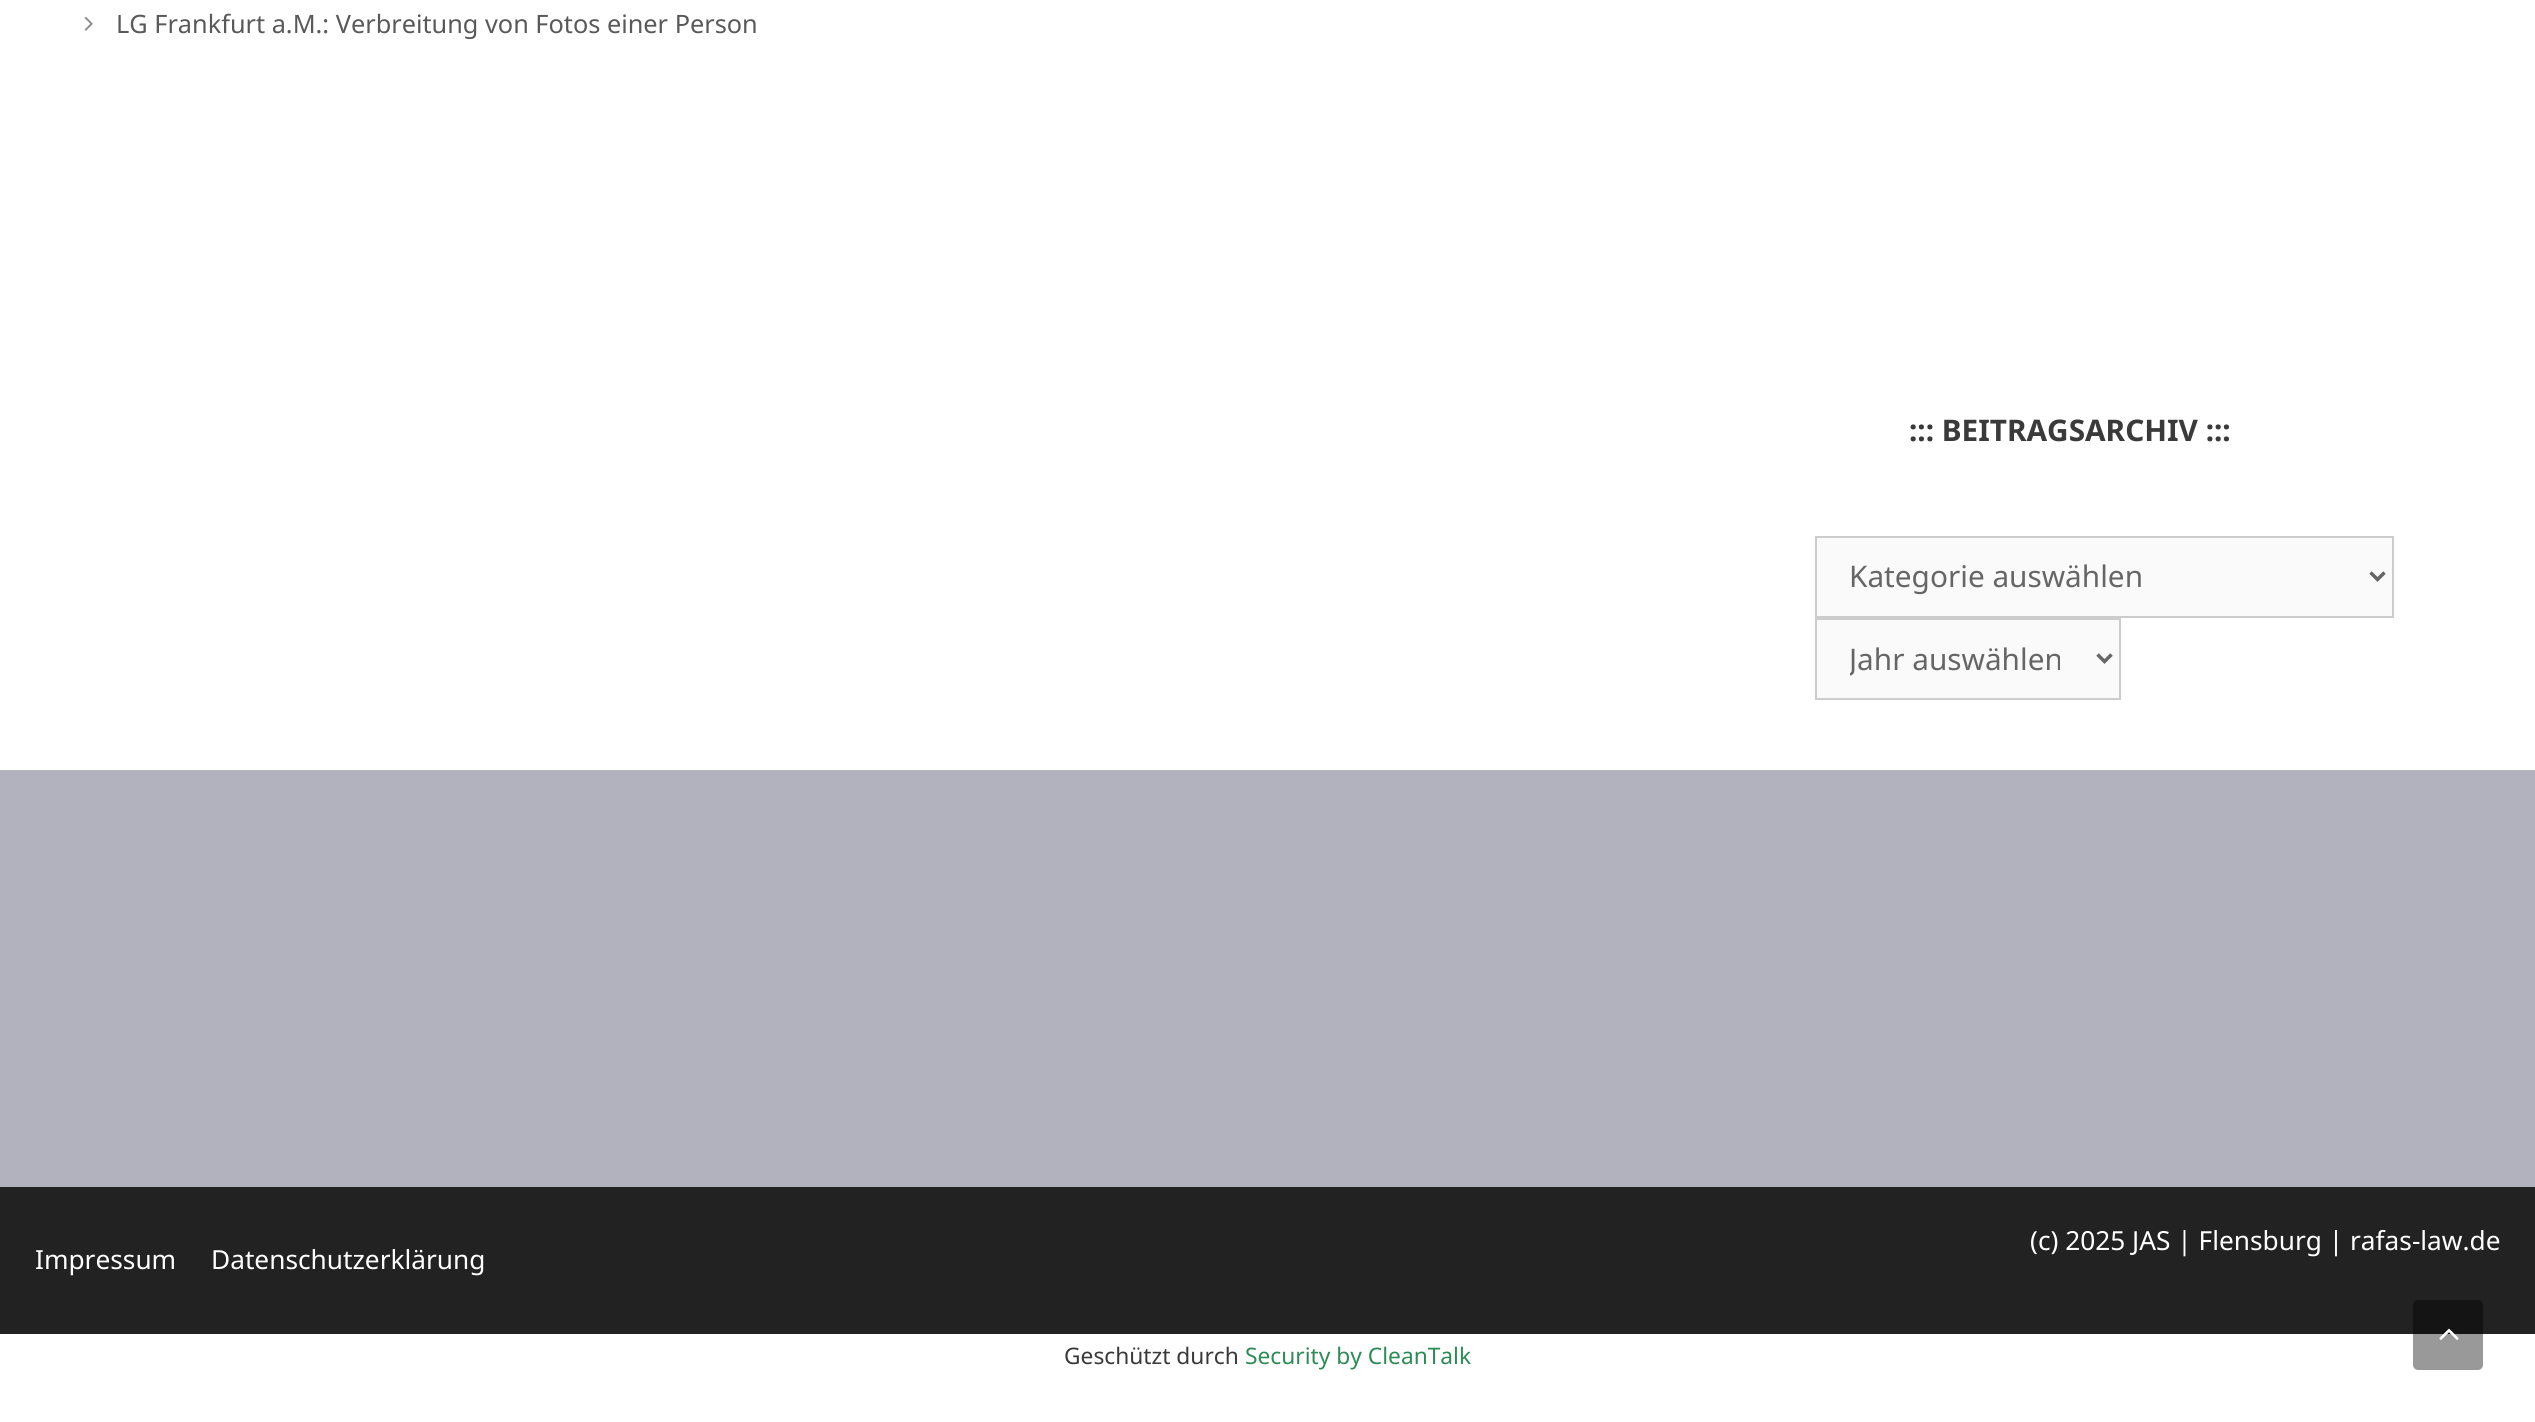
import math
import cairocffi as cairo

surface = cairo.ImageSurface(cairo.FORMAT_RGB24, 2535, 1422)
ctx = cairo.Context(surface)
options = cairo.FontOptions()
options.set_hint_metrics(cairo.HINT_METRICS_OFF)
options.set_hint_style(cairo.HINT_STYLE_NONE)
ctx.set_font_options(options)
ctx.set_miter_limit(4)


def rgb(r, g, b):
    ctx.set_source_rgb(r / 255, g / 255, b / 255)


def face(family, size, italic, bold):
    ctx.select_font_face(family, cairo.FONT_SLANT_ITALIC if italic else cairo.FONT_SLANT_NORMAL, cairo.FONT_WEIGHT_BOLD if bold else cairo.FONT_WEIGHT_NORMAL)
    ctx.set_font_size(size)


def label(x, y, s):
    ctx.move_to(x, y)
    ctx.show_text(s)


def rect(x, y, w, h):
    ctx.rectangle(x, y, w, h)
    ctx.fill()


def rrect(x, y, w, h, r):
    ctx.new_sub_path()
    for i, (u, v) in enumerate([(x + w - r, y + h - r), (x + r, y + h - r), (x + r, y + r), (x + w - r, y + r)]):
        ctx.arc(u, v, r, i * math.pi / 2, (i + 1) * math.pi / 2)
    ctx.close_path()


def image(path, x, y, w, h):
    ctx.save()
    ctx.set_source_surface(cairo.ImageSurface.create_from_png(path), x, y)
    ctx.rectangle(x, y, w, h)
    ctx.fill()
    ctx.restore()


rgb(255, 255, 255)
ctx.paint()
image('image0.png', 84, 16, 9, 15)
face('Noto Sans', 25.3, 0, 0)
rgb(89, 89, 89)
label(116, 33, 'LG Frankfurt a.M.: Verbreitung von Fotos einer Person')
face('Noto Sans', 29.75, 0, 1)
rgb(58, 58, 58)
label(1909, 441, '::: BEITRAGSARCHIV :::')
rgb(250, 250, 250)
ctx.rectangle(1816, 537, 577, 80)
ctx.fill_preserve()
rgb(204, 204, 204)
ctx.stroke()
ctx.new_path()
ctx.move_to(2370.5, 572.5)
ctx.line_to(2377.5, 579.5)
ctx.line_to(2384.5, 572.5)
rgb(102, 102, 102)
ctx.set_line_width(3.5)
ctx.stroke()
face('Noto Sans', 29.75, 0, 0)
label(1849, 587, 'Kategorie auswählen')
rgb(250, 250, 250)
ctx.rectangle(1816, 619, 304, 80)
ctx.fill_preserve()
rgb(204, 204, 204)
ctx.set_line_width(2)
ctx.stroke()
ctx.new_path()
ctx.move_to(2097.5, 654.5)
ctx.line_to(2104.5, 661.5)
ctx.line_to(2111.5, 654.5)
rgb(102, 102, 102)
ctx.set_line_width(3.5)
ctx.stroke()
ctx.save()
ctx.rectangle(1850, 637, 215, 44)
ctx.clip()
label(1849, 670, 'Jahr auswählen')
ctx.restore()
rgb(178, 178, 190)
rect(0, 770, 2535, 417)
rgb(34, 34, 34)
rect(0, 1187, 2535, 147)
face('Noto Sans', 26.25, 0, 0)
rgb(255, 255, 255)
label(2030, 1250, '(c) 2025 JAS | Flensburg | rafas-law.de')
label(35, 1269, 'Impressum')
label(211, 1269, 'Datenschutzerklärung')
face('Noto Sans', 22.75, 0, 0)
rgb(58, 58, 58)
label(1064, 1364, 'Geschützt durch')
rgb(46, 138, 87)
label(1245, 1364, 'Security by CleanTalk')
ctx.set_source_rgba(0, 0, 0, 0.4)
rrect(2413, 1300, 70, 70, 5)
ctx.fill()
image('image1.png', 2439, 1328, 20, 12)
surface.write_to_png('render.png')
